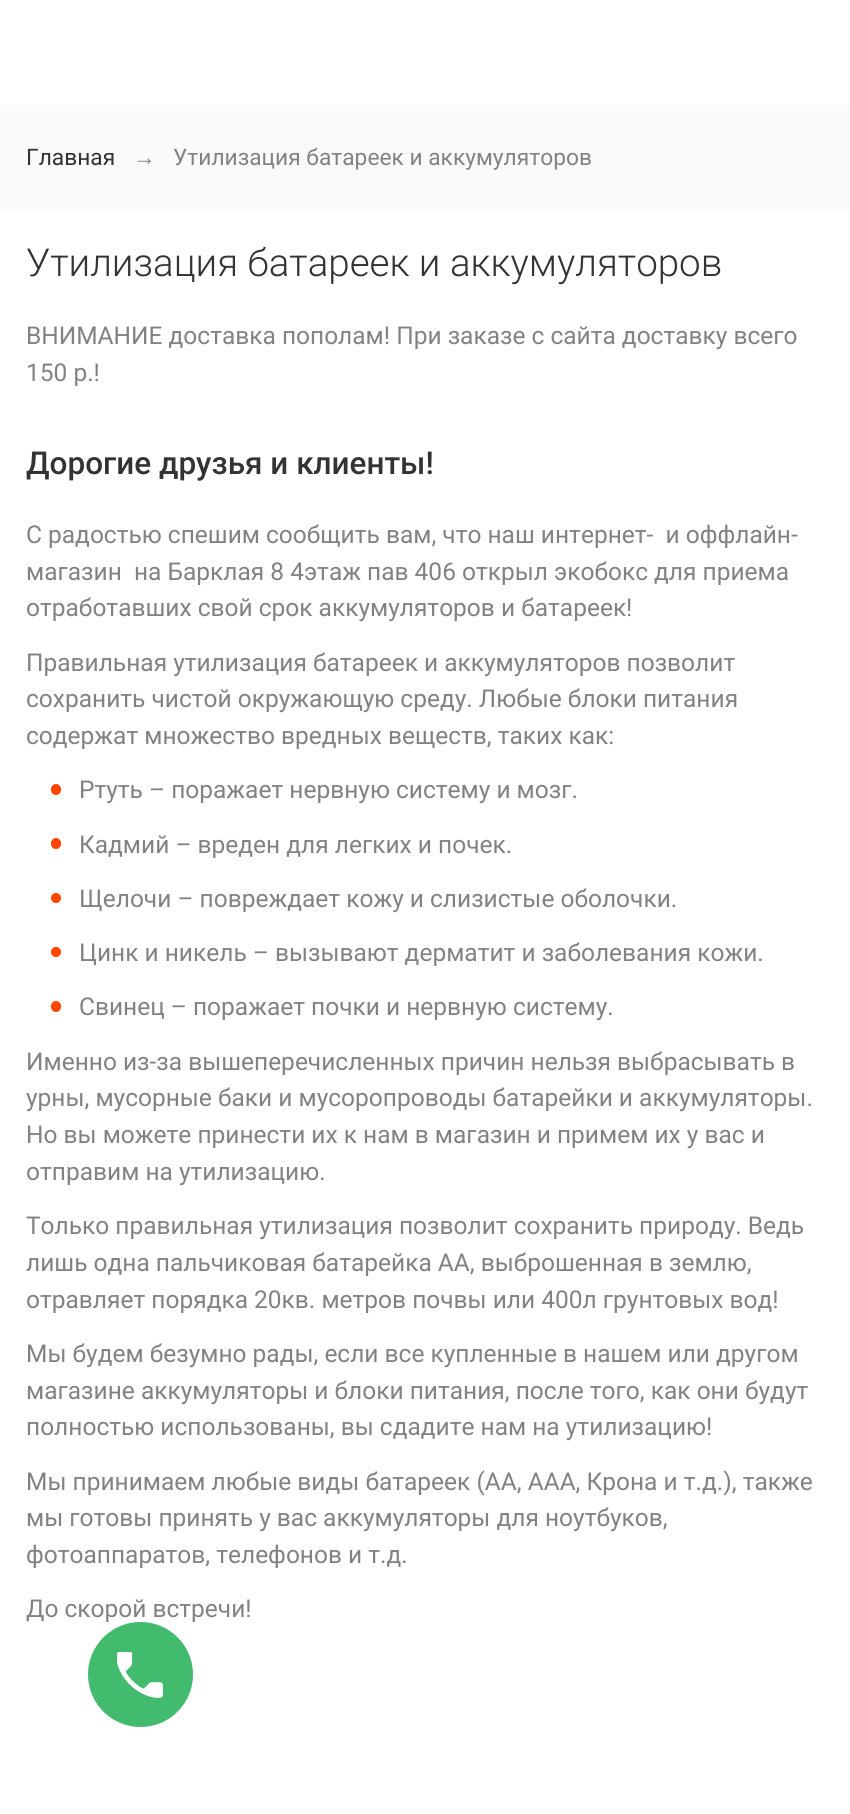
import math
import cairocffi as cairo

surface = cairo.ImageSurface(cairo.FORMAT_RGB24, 850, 1814)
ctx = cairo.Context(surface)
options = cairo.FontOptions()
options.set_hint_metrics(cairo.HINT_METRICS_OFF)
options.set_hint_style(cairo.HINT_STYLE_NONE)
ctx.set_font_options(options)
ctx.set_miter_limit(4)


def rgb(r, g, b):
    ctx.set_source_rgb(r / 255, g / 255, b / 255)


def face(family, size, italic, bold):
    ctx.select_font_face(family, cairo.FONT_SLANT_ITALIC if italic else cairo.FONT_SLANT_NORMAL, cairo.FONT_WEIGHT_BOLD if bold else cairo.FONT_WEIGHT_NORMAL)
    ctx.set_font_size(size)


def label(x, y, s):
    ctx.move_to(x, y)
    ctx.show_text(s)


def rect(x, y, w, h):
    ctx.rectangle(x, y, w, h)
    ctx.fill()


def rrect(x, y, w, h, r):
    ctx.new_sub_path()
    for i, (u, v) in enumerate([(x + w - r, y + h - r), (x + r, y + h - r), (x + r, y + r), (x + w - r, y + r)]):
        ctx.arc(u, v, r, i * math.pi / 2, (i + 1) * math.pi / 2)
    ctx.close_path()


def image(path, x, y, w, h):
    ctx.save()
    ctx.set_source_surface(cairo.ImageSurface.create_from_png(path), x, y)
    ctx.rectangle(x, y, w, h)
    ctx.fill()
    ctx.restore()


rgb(255, 255, 255)
ctx.paint()
rgb(250, 250, 250)
rect(0, 105, 850, 105)
face('Roboto', 22.75, 0, 0)
rgb(51, 51, 51)
label(26, 165, 'Главная')
face('Liberation Sans', 22.75, 0, 0)
rgb(130, 130, 130)
label(133, 165, '→')
face('Roboto', 22.75, 0, 0)
label(173, 165, 'Утилизация батареек и аккумуляторов')
face('Roboto Light', 38.5, 0, 0)
rgb(51, 51, 51)
label(26, 276, 'Утилизация батареек и аккумуляторов')
face('Roboto', 24.5, 0, 0)
rgb(130, 130, 130)
label(26, 344, 'ВНИМАНИЕ доставка пополам! При заказе с сайта доставку всего')
label(26, 381, '150 р.!')
face('Roboto Medium', 31.5, 0, 0)
rgb(51, 51, 51)
label(26, 474, 'Дорогие друзья и клиенты!')
face('Roboto', 24.5, 0, 0)
rgb(130, 130, 130)
label(26, 543, 'С радостью спешим сообщить вам, что наш интернет-  и оффлайн-')
label(26, 580, 'магазин  на Барклая 8 4этаж пав 406 открыл экобокс для приема')
label(26, 616, 'отработавших свой срок аккумуляторов и батареек!')
label(26, 671, 'Правильная утилизация батареек и аккумуляторов позволит')
label(26, 707, 'сохранить чистой окружающую среду. Любые блоки питания')
label(26, 744, 'содержат множество вредных веществ, таких как:')
rgb(255, 69, 0)
rrect(51, 784, 10, 11, 5)
ctx.fill()
rgb(130, 130, 130)
label(79, 798, 'Ртуть – поражает нервную систему и мозг.')
rgb(255, 69, 0)
rrect(51, 838, 10, 11, 5)
ctx.fill()
rgb(130, 130, 130)
label(79, 853, 'Кадмий – вреден для легких и почек.')
rgb(255, 69, 0)
ctx.new_path()
ctx.arc(56, 898, 5, 0, 2 * math.pi)
ctx.fill()
rgb(130, 130, 130)
label(79, 907, 'Щелочи – повреждает кожу и слизистые оболочки.')
rgb(255, 69, 0)
ctx.new_path()
ctx.arc(56, 952, 5, 0, 2 * math.pi)
ctx.fill()
rgb(130, 130, 130)
label(79, 961, 'Цинк и никель – вызывают дерматит и заболевания кожи.')
rgb(255, 69, 0)
rrect(51, 1001, 10, 11, 5)
ctx.fill()
rgb(130, 130, 130)
label(79, 1015, 'Свинец – поражает почки и нервную систему.')
label(26, 1070, 'Именно из-за вышеперечисленных причин нельзя выбрасывать в')
label(26, 1106, 'урны, мусорные баки и мусоропроводы батарейки и аккумуляторы.')
label(26, 1143, 'Но вы можете принести их к нам в магазин и примем их у вас и')
label(26, 1180, 'отправим на утилизацию.')
label(26, 1234, 'Только правильная утилизация позволит сохранить природу. Ведь')
label(26, 1271, 'лишь одна пальчиковая батарейка AA, выброшенная в землю,')
label(26, 1308, 'отравляет порядка 20кв. метров почвы или 400л грунтовых вод!')
label(26, 1362, 'Мы будем безумно рады, если все купленные в нашем или другом')
label(26, 1399, 'магазине аккумуляторы и блоки питания, после того, как они будут')
label(26, 1435, 'полностью использованы, вы сдадите нам на утилизацию!')
label(26, 1490, 'Мы принимаем любые виды батареек (AA, AAA, Крона и т.д.), также')
label(26, 1526, 'мы готовы принять у вас аккумуляторы для ноутбуков,')
label(26, 1563, 'фотоаппаратов, телефонов и т.д.')
label(26, 1617, 'До скорой встречи!')
rgb(68, 187, 110)
ctx.new_path()
ctx.arc(140.5, 1674.5, 52.5, 0, 2 * math.pi)
ctx.fill()
ctx.set_source_rgba(0.267, 0.733, 0.431, 0.1)
ctx.arc(140.5, 1674.5, 52.5, 0, 2 * math.pi)
ctx.fill()
image('image0.png', 117, 1652, 46, 46)
image('image1.png', 117, 1652, 46, 46)
surface.write_to_png('render.png')
